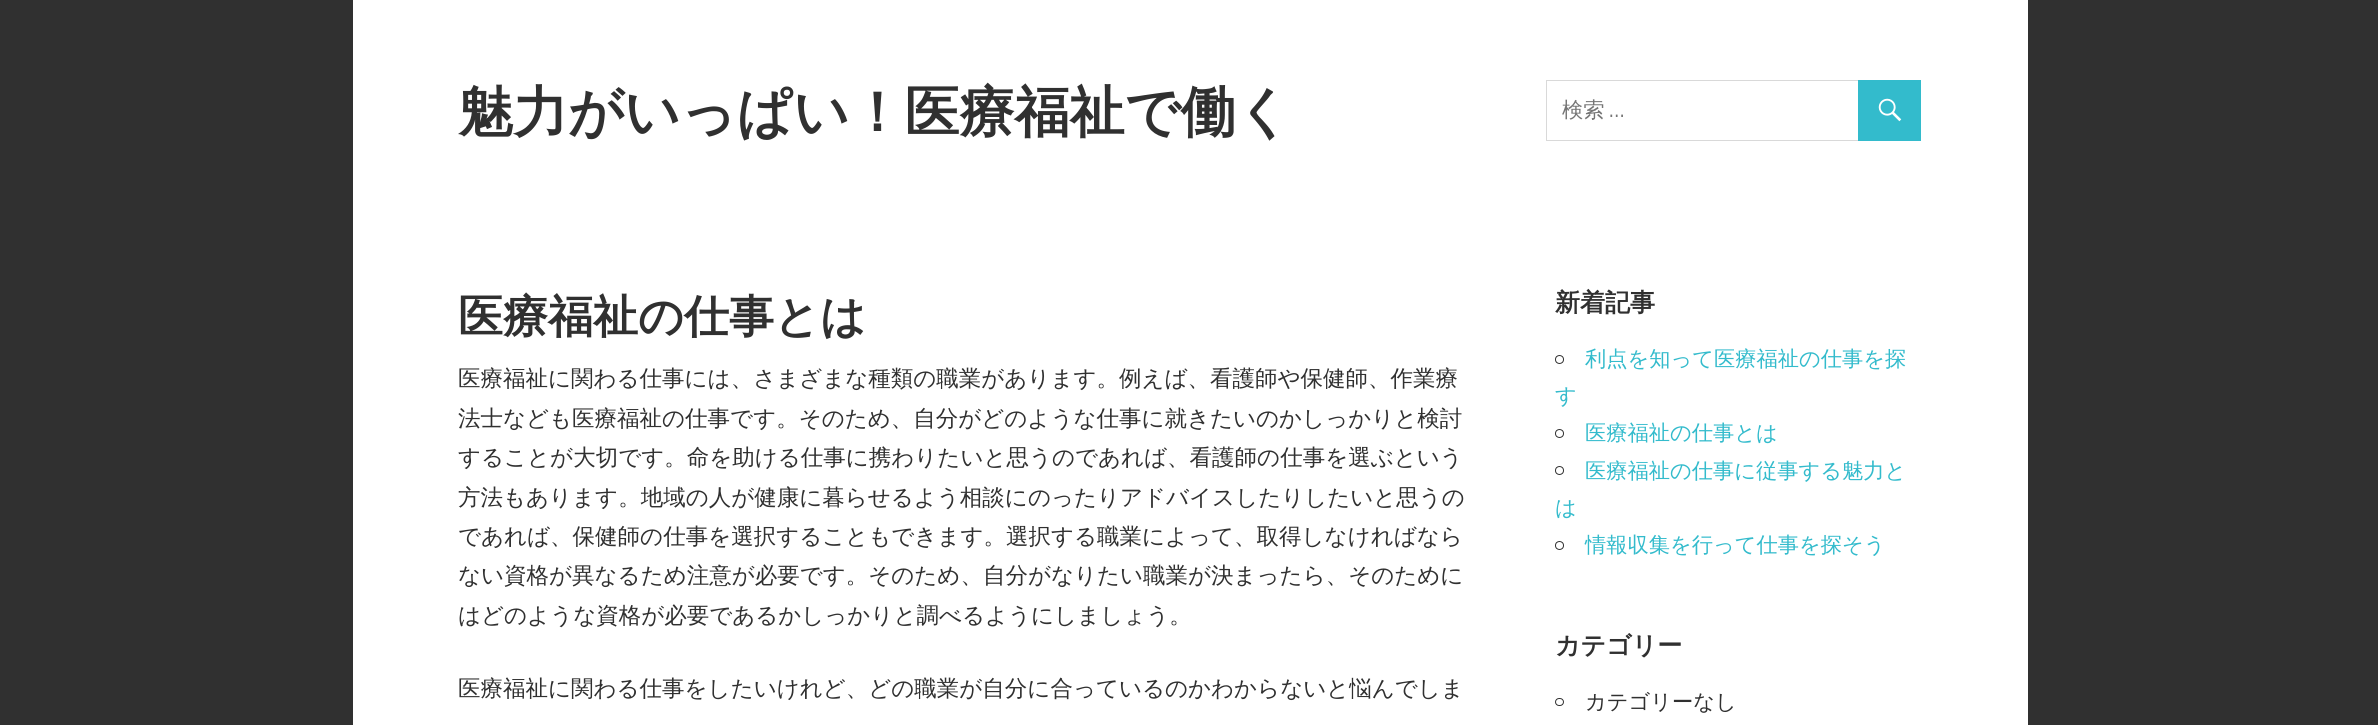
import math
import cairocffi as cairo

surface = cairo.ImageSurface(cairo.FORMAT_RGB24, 2378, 725)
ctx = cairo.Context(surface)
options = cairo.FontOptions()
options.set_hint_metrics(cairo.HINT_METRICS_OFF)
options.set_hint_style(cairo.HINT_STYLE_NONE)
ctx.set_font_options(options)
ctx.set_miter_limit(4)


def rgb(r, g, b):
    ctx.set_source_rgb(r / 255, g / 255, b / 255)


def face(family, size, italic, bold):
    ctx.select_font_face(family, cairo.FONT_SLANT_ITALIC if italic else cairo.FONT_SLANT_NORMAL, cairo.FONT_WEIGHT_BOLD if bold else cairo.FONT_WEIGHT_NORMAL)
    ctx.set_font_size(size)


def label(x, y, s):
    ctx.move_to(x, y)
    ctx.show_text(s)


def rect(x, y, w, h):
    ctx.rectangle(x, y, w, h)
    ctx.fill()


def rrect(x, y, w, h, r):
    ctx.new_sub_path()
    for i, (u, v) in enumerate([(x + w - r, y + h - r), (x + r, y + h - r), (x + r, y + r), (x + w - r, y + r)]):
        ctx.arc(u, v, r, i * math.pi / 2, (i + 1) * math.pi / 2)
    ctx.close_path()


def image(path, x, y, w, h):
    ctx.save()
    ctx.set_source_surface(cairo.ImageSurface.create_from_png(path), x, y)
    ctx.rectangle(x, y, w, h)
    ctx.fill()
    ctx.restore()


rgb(48, 48, 48)
ctx.paint()
rgb(255, 255, 255)
rect(353, 0, 1675, 725)
face('WenQuanYi Zen Hei', 55, 0, 1)
rgb(48, 48, 48)
label(458, 131, '魅力がいっぱい！医療福祉で働く')
ctx.rectangle(1546.5, 80.5, 374, 60)
rgb(217, 217, 217)
ctx.set_line_width(1)
ctx.stroke()
face('WenQuanYi Zen Hei Medium', 21.25, 0, 0)
rgb(117, 117, 117)
label(1562, 117, '検索')
face('Titillium Web', 21.25, 0, 0)
label(1609, 117, '…')
rgb(51, 187, 204)
rect(1858, 80, 63, 61)
image('image0.png', 1878, 98, 24, 24)
face('WenQuanYi Zen Hei', 45, 0, 1)
rgb(48, 48, 48)
label(458, 332, '医療福祉の仕事とは')
face('WenQuanYi Zen Hei Medium', 22.5, 0, 0)
label(458, 386, '医療福祉に関わる仕事には、さまざまな種類の職業があります。例えば、看護師や保健師、作業療')
label(458, 426, '法士なども医療福祉の仕事です。そのため、自分がどのような仕事に就きたいのかしっかりと検討')
label(458, 465, 'することが大切です。命を助ける仕事に携わりたいと思うのであれば、看護師の仕事を選ぶという')
label(458, 505, '方法もあります。地域の人が健康に暮らせるよう相談にのったりアドバイスしたりしたいと思うの')
label(458, 544, 'であれば、保健師の仕事を選択することもできます。選択する職業によって、取得しなければなら')
label(458, 583, 'ない資格が異なるため注意が必要です。そのため、自分がなりたい職業が決まったら、そのために')
label(458, 623, 'はどのような資格が必要であるかしっかりと調べるようにしましょう。')
label(458, 696, '医療福祉に関わる仕事をしたいけれど、どの職業が自分に合っているのかわからないと悩んでしま')
face('WenQuanYi Zen Hei', 25, 0, 1)
label(1555, 311, '新着記事')
ctx.new_path()
ctx.arc(1559.5, 359.5, 4, 0, 2 * math.pi)
ctx.stroke()
face('WenQuanYi Zen Hei Medium', 21.25, 0, 0)
rgb(51, 187, 204)
label(1585, 366, '利点を知って医療福祉の仕事を探')
label(1555, 403, 'す')
ctx.new_path()
ctx.arc(1559.5, 433.5, 4, 0, 2 * math.pi)
rgb(48, 48, 48)
ctx.stroke()
rgb(51, 187, 204)
label(1585, 440, '医療福祉の仕事とは')
ctx.new_path()
ctx.arc(1559.5, 470.5, 4, 0, 2 * math.pi)
rgb(48, 48, 48)
ctx.stroke()
rgb(51, 187, 204)
label(1585, 478, '医療福祉の仕事に従事する魅力と')
label(1555, 515, 'は')
ctx.new_path()
ctx.arc(1559.5, 545.5, 4, 0, 2 * math.pi)
rgb(48, 48, 48)
ctx.stroke()
rgb(51, 187, 204)
label(1585, 552, '情報収集を行って仕事を探そう')
face('WenQuanYi Zen Hei', 25, 0, 1)
rgb(48, 48, 48)
label(1555, 654, 'カテゴリー')
rrect(1555.5, 698.5, 8, 7, 3.5)
ctx.stroke()
face('WenQuanYi Zen Hei Medium', 21.25, 0, 0)
label(1585, 709, 'カテゴリーなし')
surface.write_to_png('render.png')
